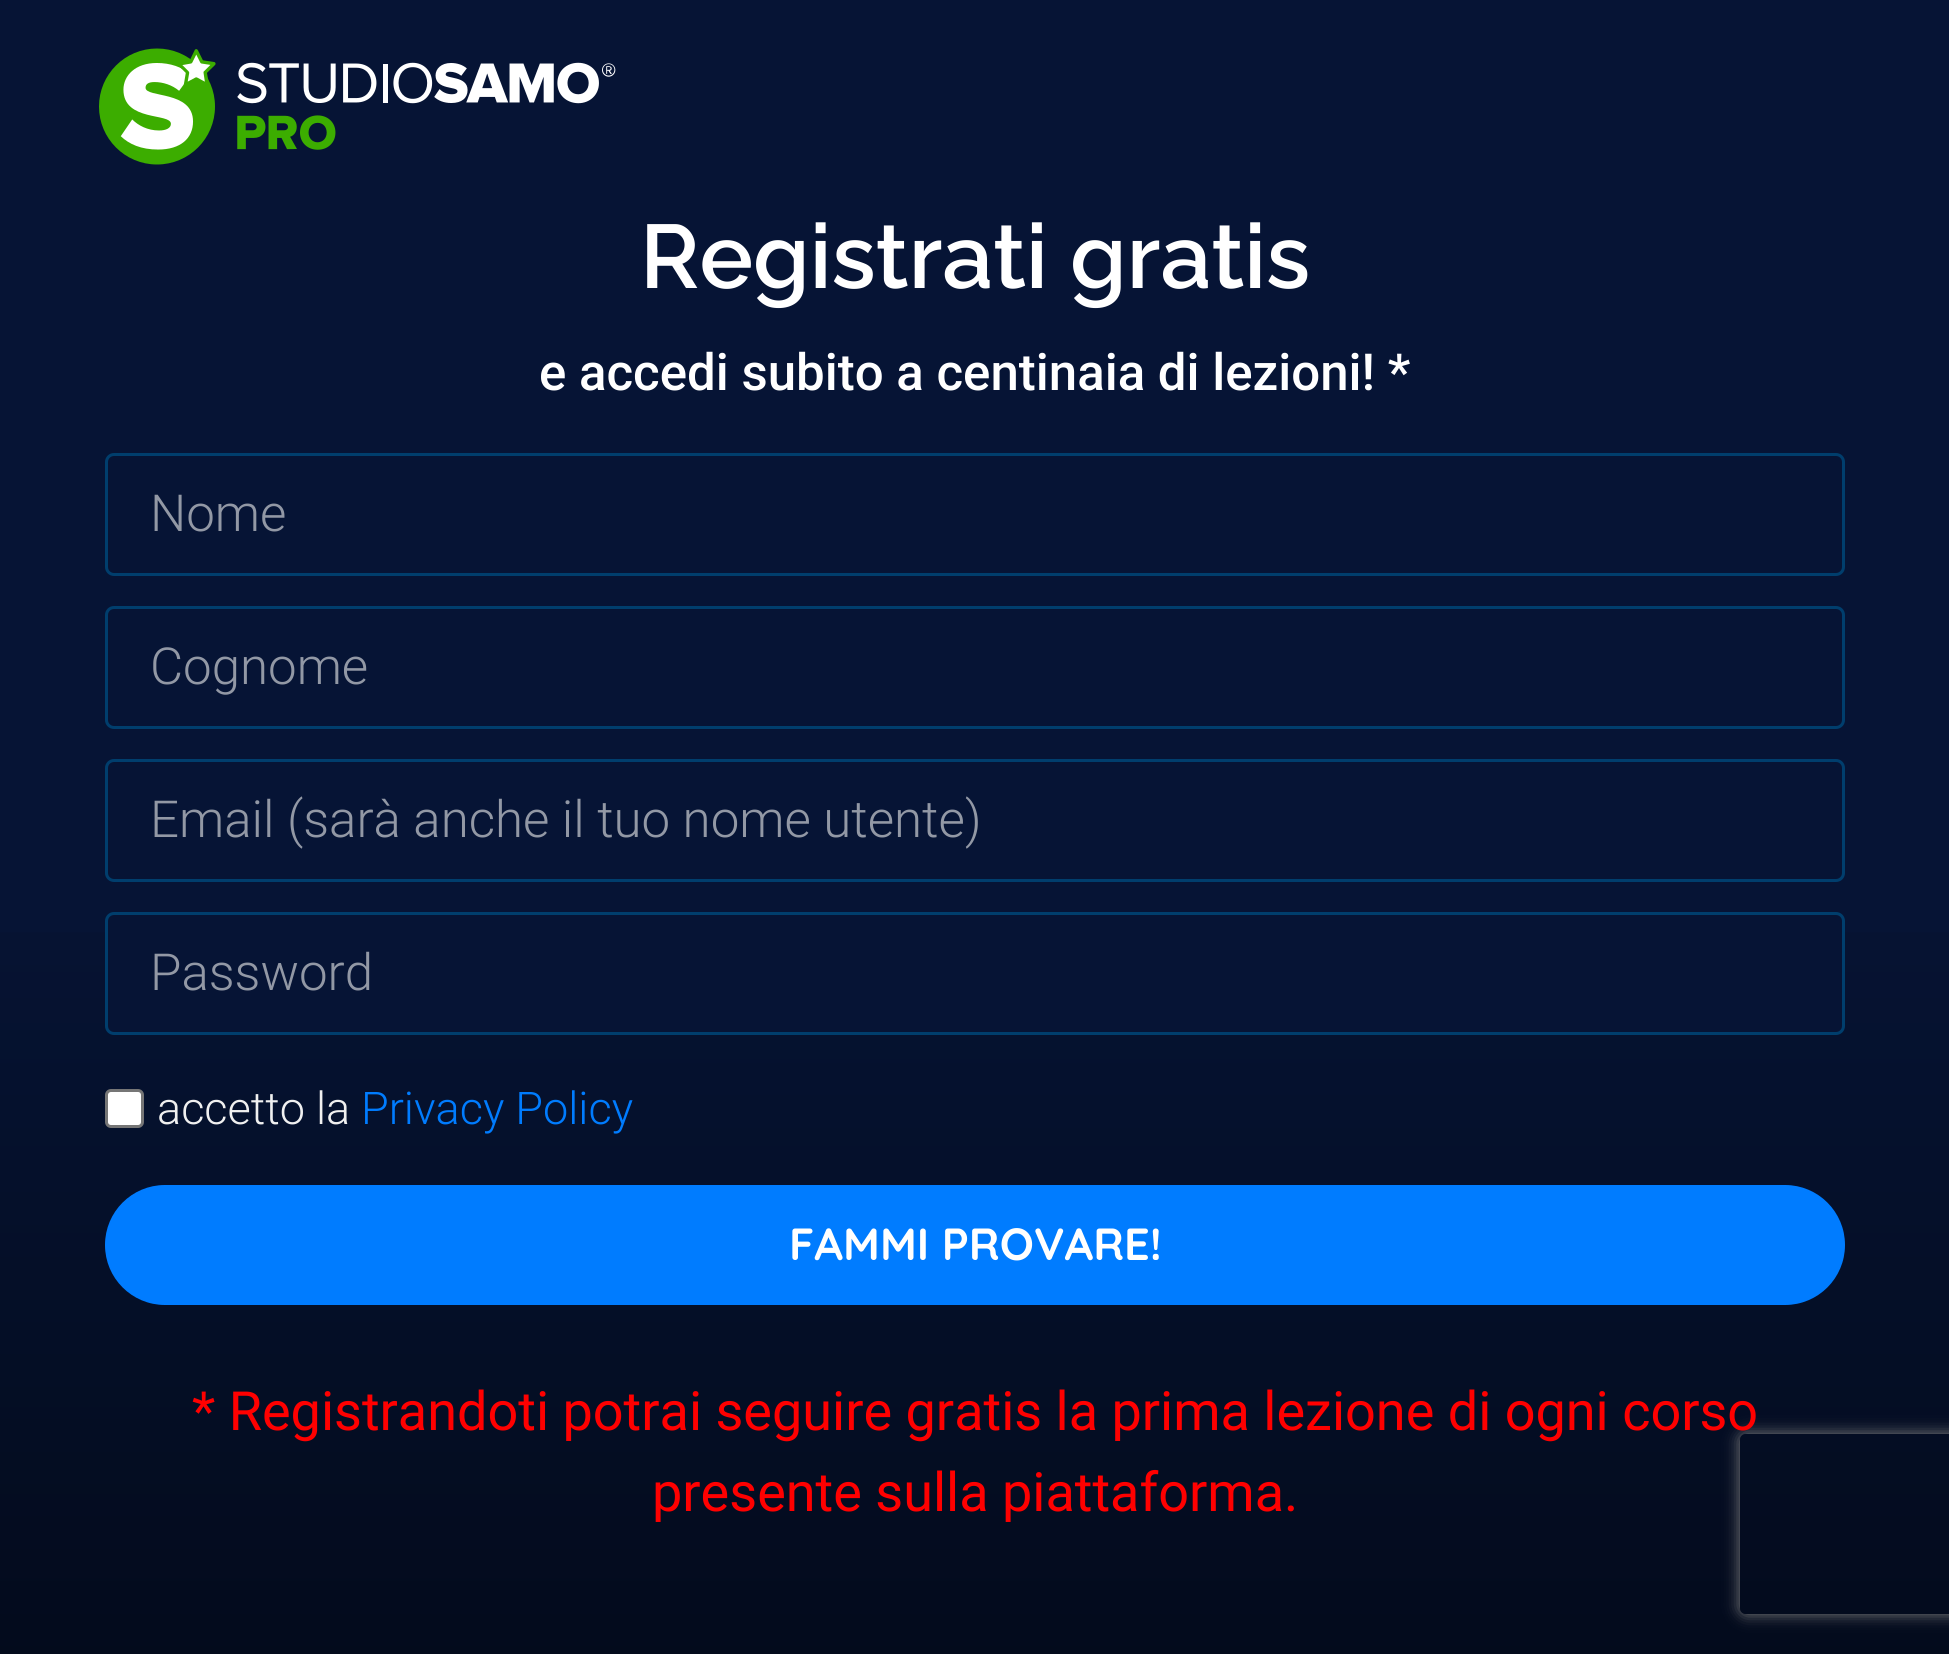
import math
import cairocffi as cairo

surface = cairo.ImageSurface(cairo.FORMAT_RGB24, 1949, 1654)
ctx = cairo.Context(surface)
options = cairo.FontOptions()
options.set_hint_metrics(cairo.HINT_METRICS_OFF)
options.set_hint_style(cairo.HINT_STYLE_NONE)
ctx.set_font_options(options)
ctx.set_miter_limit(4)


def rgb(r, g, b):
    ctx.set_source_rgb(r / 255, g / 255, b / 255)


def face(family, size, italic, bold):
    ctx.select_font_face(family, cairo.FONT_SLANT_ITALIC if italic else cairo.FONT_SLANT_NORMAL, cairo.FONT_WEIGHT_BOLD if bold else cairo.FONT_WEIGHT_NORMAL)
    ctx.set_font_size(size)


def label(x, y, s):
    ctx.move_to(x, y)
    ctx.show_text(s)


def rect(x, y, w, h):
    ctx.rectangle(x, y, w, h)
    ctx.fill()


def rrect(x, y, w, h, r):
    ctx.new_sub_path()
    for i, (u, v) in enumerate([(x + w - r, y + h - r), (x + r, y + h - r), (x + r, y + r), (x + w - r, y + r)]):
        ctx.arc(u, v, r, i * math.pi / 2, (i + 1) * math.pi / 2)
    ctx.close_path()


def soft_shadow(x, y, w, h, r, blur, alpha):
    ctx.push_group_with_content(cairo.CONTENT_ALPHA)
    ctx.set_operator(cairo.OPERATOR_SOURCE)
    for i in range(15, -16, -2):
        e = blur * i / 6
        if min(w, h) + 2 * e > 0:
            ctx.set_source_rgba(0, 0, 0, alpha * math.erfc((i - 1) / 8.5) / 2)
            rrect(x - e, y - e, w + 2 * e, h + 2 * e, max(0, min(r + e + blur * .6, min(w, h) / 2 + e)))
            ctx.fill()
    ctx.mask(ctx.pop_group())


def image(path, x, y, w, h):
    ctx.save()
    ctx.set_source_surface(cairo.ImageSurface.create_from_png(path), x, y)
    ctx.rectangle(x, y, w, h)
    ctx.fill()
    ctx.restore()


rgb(6, 20, 53)
ctx.paint()
image('image0.png', 99, 48, 517, 117)
face('Raleway SemiBold', 90, 0, 0)
rgb(255, 255, 255)
label(640, 288, 'Registrati gratis')
face('Roboto Medium', 51, 0, 0)
label(539, 390, 'e accedi subito a centinaia di lezioni! *')
rrect(106.5, 454.5, 1737, 120, 7.5)
rgb(0, 62, 109)
ctx.set_line_width(3)
ctx.stroke()
face('Roboto Light', 51, 0, 0)
rgb(146, 152, 165)
label(150, 531, 'Nome')
rrect(106.5, 607.5, 1737, 120, 7.5)
rgb(0, 62, 109)
ctx.stroke()
rgb(146, 152, 165)
label(150, 684, 'Cognome')
rrect(106.5, 760.5, 1737, 120, 7.5)
rgb(0, 62, 109)
ctx.stroke()
rgb(146, 152, 165)
label(150, 837, 'Email (sarà anche il tuo nome utente)')
gradient = cairo.LinearGradient(975, 453, 975, 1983)
gradient.add_color_stop_rgba(0.26, 0.024, 0.078, 0.208, 1)
gradient.add_color_stop_rgba(1, 0.008, 0.027, 0.071, 1)
ctx.set_source(gradient)
rect(0, 932, 1949, 722)
rgb(6, 20, 53)
rrect(106.5, 913.5, 1737, 120, 7.5)
ctx.fill_preserve()
rgb(0, 62, 109)
ctx.stroke()
rgb(146, 152, 165)
label(150, 990, 'Password')
rgb(255, 255, 255)
rrect(106.5, 1090.5, 36, 36, 4.5)
ctx.fill_preserve()
rgb(118, 118, 118)
ctx.stroke()
face('Roboto Light', 45, 0, 0)
rgb(240, 240, 240)
label(157, 1124, 'accetto la')
rgb(0, 124, 255)
label(361, 1124, 'Privacy Policy')
rrect(105, 1185, 1740, 120, 60)
ctx.fill()
face('Quicksand', 45, 0, 1)
rgb(255, 255, 255)
label(789, 1260, 'FAMMI PROVARE!')
ctx.save()
ctx.set_fill_rule(cairo.FILL_RULE_EVEN_ODD)
ctx.new_path()
ctx.move_to(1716, 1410)
ctx.line_to(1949, 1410)
ctx.line_to(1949, 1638)
ctx.line_to(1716, 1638)
ctx.close_path()
ctx.move_to(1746, 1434)
ctx.line_to(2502, 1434)
ctx.curve_to(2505.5, 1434, 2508, 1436.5, 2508, 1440)
ctx.line_to(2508, 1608)
ctx.curve_to(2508, 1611.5, 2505.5, 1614, 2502, 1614)
ctx.line_to(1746, 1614)
ctx.curve_to(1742.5, 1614, 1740, 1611.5, 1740, 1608)
ctx.line_to(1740, 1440)
ctx.curve_to(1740, 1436.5, 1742.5, 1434, 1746, 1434)
ctx.close_path()
ctx.clip()
rgb(128, 128, 128)
soft_shadow(1740, 1434, 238, 180, 6, 7.5, 1)
ctx.restore()
face('Roboto', 54, 0, 0)
rgb(255, 0, 0)
label(192, 1430, '* Registrandoti potrai seguire gratis la prima lezione di ogni corso')
label(652, 1511, 'presente sulla piattaforma.')
surface.write_to_png('render.png')
